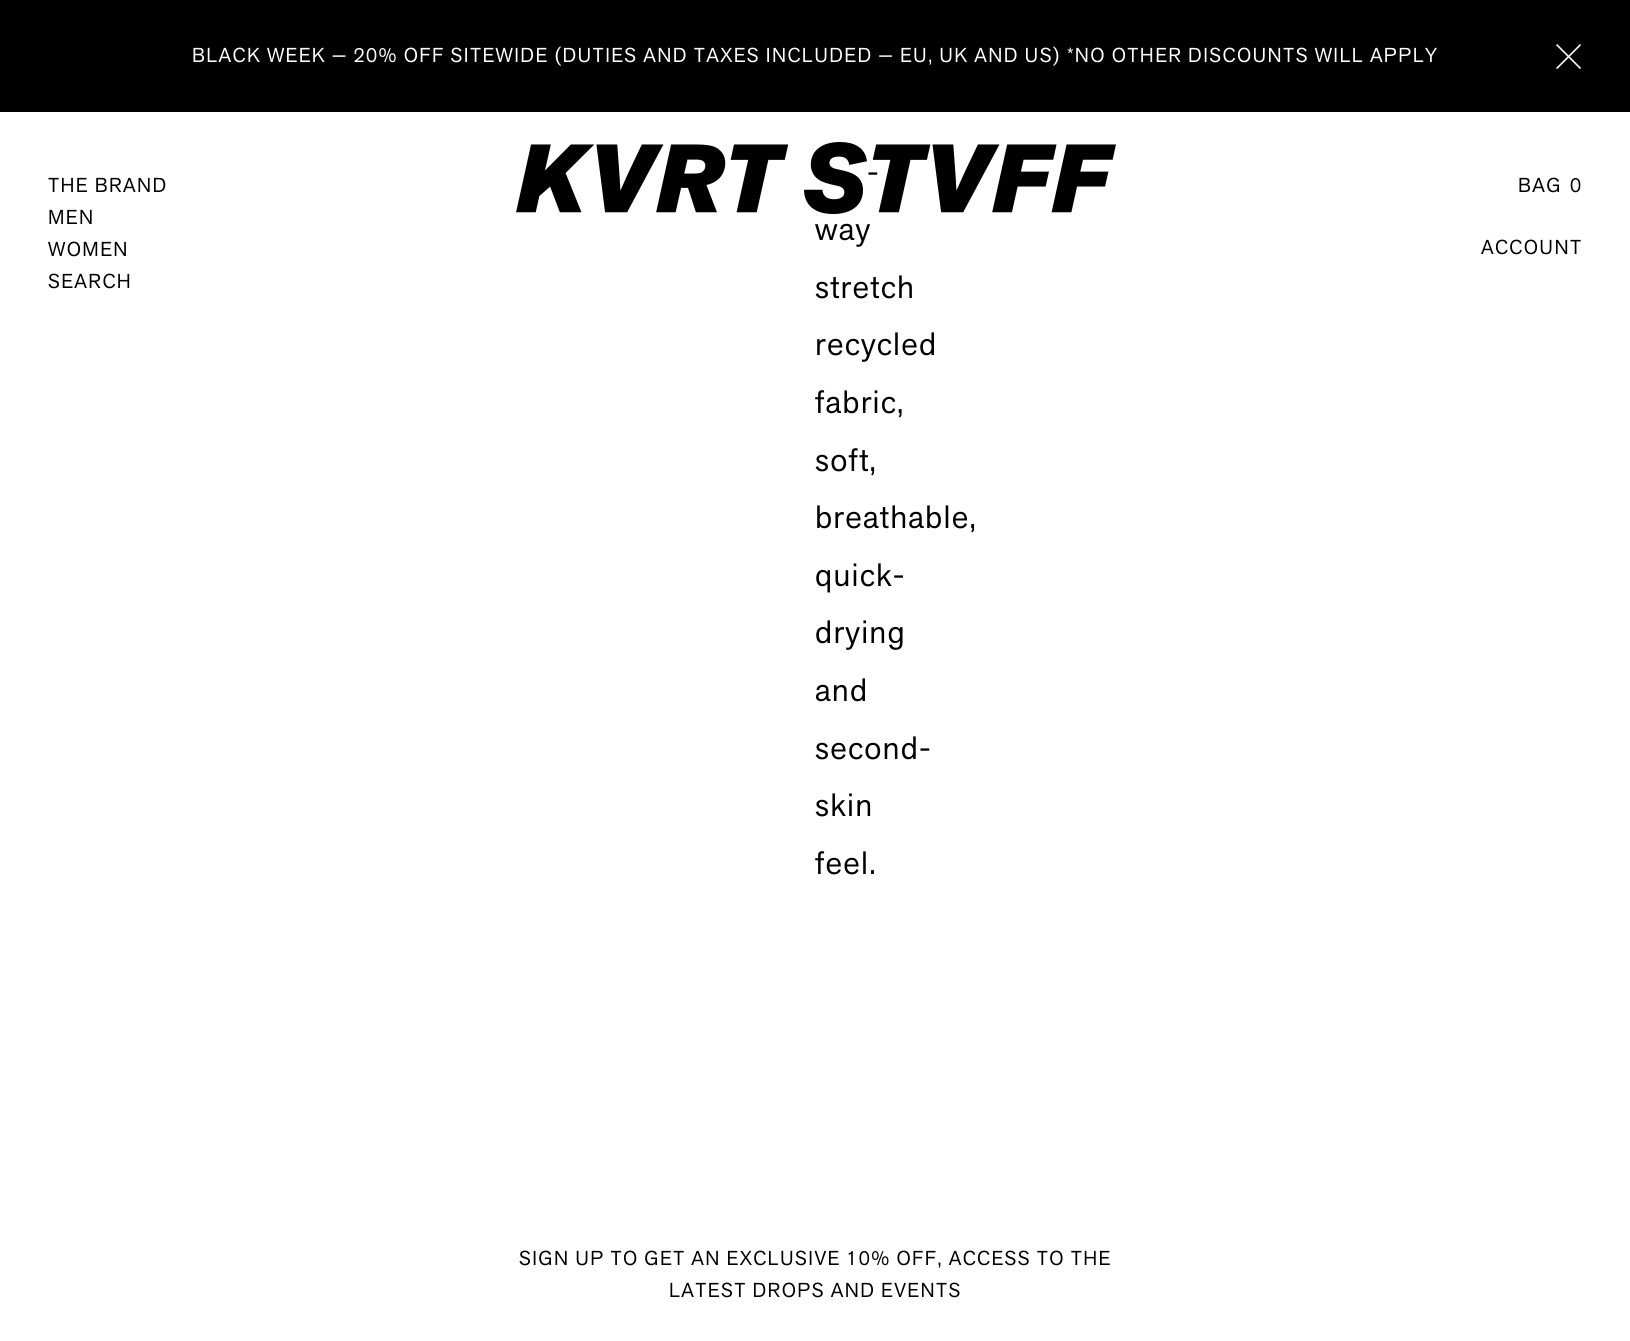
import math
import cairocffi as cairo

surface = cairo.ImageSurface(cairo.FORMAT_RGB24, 1630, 1341)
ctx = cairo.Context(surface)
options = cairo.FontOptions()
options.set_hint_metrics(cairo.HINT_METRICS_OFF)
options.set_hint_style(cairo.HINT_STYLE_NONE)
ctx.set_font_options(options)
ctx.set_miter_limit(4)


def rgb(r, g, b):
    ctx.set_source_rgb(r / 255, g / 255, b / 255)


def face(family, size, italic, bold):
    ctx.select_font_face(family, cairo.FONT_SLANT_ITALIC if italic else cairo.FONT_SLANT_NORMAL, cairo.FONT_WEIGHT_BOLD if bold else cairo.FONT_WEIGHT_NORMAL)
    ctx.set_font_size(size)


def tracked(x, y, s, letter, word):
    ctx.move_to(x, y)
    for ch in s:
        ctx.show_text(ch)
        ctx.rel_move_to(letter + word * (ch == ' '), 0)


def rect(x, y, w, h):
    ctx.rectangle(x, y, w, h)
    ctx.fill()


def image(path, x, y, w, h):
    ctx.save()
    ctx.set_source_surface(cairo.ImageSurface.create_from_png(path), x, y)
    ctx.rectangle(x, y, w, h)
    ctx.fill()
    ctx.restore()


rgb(255, 255, 255)
ctx.paint()
rgb(0, 0, 0)
rect(0, 0, 1630, 112)
face('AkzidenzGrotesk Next', 20, 0, 0)
rgb(255, 255, 255)
tracked(192, 62, 'BLACK WEEK — 20% OFF SITEWIDE (DUTIES AND TAXES INCLUDED — EU, UK AND US) *NO OTHER DISCOUNTS WILL APPLY', 1.4, 0)
image('image0.png', 1556, 44, 25, 25)
rgb(0, 0, 0)
tracked(48, 192, 'THE BRAND', 1.4, 0)
tracked(48, 224, 'MEN', 1.4, 0)
tracked(48, 256, 'WOMEN', 1.4, 0)
tracked(48, 288, 'SEARCH', 1.4, 0)
face('AkzidenzGrotesk Next', 32, 0, 0)
tracked(867, 183, '-', 1.25, 0)
image('image1.png', 516, 142, 600, 72)
face('AkzidenzGrotesk Next', 20, 0, 0)
tracked(1518, 192, 'BAG', 1.4, 0)
tracked(1570, 192, '0', 1.4, 0)
tracked(1481, 254, 'ACCOUNT', 1.4, 0)
face('AkzidenzGrotesk Next', 32, 0, 0)
tracked(815, 240, 'way', 1.25, 0)
tracked(815, 298, 'stretch', 1.25, 0)
tracked(815, 355, 'recycled', 1.25, 0)
tracked(815, 413, 'fabric,', 1.25, 0)
tracked(815, 471, 'soft,', 1.25, 0)
tracked(815, 528, 'breathable,', 1.25, 0)
tracked(815, 586, 'quick-', 1.25, 0)
tracked(815, 643, 'drying', 1.25, 0)
tracked(815, 701, 'and', 1.25, 0)
tracked(815, 759, 'second-', 1.25, 0)
tracked(815, 816, 'skin', 1.25, 0)
tracked(815, 874, 'feel.', 1.25, 0)
face('AkzidenzGrotesk Next', 20, 0, 0)
tracked(519, 1265, 'SIGN UP TO GET AN EXCLUSIVE 10% OFF, ACCESS TO THE', 1.4, 0)
tracked(669, 1297, 'LATEST DROPS AND EVENTS', 1.4, 0)
surface.write_to_png('render.png')
